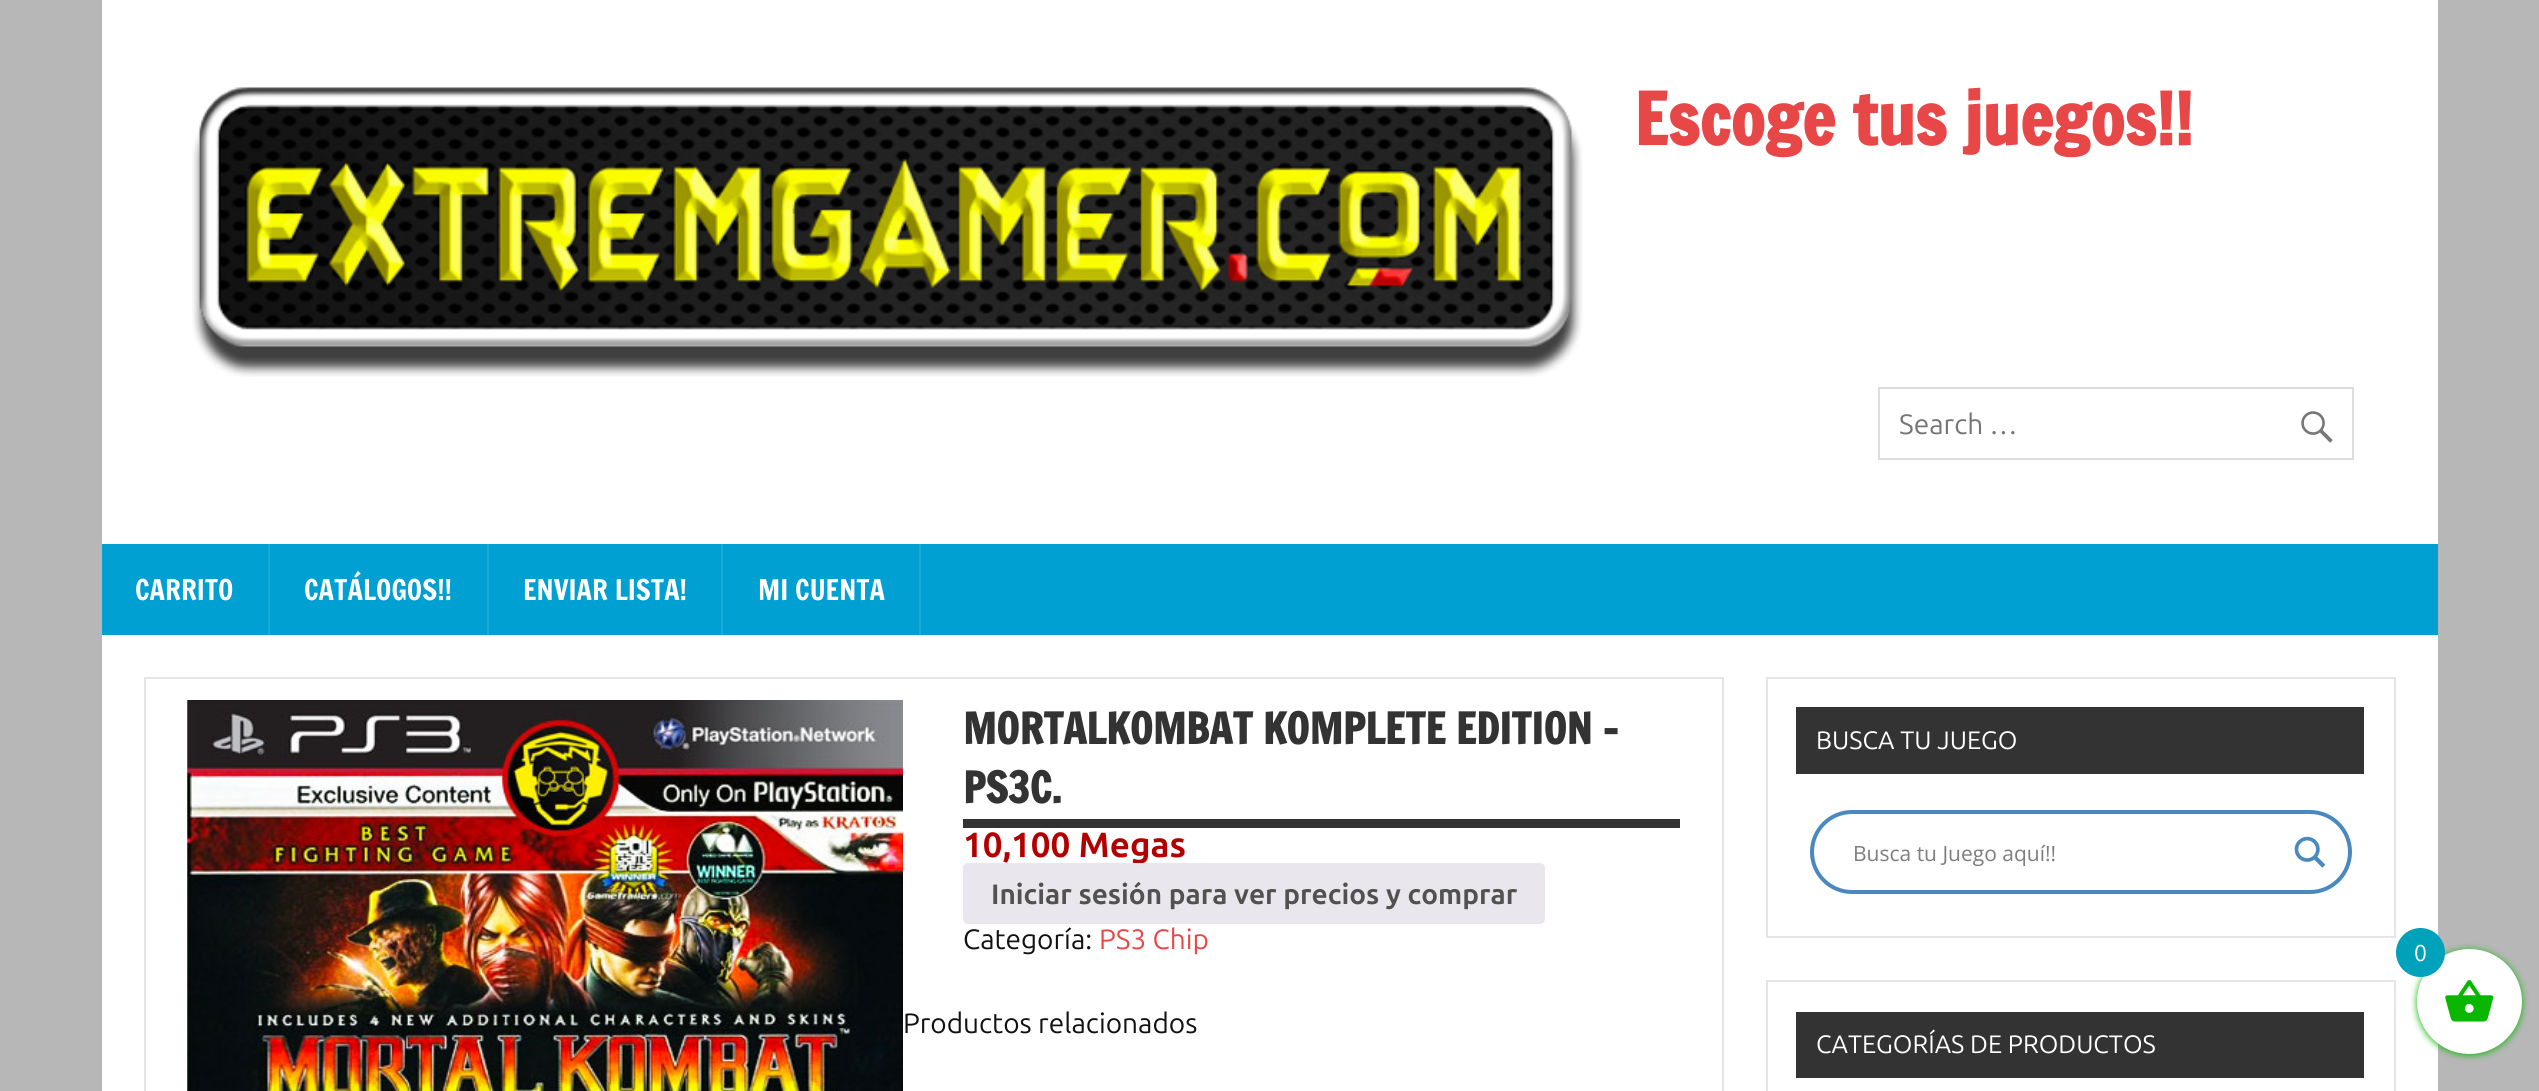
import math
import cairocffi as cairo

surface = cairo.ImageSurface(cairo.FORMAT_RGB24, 2539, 1091)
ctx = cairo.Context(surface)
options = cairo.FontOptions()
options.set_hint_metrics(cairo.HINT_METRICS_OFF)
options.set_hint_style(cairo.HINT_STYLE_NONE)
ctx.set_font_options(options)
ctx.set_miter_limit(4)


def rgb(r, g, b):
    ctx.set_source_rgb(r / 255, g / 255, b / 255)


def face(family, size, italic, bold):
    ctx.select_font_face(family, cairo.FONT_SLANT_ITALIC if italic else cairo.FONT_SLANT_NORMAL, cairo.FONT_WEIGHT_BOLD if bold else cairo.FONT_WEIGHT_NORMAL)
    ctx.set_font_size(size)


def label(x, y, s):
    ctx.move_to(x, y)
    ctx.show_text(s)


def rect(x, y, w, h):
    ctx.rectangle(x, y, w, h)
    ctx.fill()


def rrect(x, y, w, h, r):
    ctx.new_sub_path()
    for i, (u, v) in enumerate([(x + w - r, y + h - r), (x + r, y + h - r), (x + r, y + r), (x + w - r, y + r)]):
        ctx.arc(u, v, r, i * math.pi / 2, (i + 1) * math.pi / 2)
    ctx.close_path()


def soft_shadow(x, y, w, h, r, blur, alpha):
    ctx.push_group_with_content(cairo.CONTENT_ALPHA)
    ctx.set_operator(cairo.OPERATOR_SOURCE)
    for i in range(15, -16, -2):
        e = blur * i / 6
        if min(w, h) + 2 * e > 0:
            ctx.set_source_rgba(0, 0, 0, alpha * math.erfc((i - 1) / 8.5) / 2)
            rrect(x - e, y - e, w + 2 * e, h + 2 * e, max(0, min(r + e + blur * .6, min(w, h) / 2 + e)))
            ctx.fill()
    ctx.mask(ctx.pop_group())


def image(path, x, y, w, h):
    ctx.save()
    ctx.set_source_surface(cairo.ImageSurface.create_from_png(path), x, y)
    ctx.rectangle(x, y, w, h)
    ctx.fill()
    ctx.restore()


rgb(183, 183, 183)
ctx.paint()
rgb(255, 255, 255)
rect(102, 0, 2336, 1091)
image('image0.png', 192, 87, 1391, 290)
face('Francois One', 70, 0, 1)
rgb(232, 71, 71)
label(1634, 145, 'Escoge tus juegos!!')
ctx.rectangle(1879, 388, 474, 71)
rgb(221, 221, 221)
ctx.stroke()
face('Ubuntu', 28, 0, 0)
rgb(117, 117, 117)
label(1899, 434, 'Search …')
image('image1.png', 2301, 411, 32, 32)
rgb(0, 160, 210)
rect(102, 544, 2336, 91)
rgb(26, 170, 215)
rect(268, 544, 2, 91)
face('Francois One', 28, 0, 0)
rgb(255, 255, 255)
label(135, 600, 'CARRITO')
rgb(26, 170, 215)
rect(487, 544, 2, 91)
rgb(255, 255, 255)
label(304, 600, 'CATÁLOGOS!!')
rgb(26, 170, 215)
rect(721, 544, 2, 91)
rgb(255, 255, 255)
label(523, 600, 'ENVIAR LISTA!')
rgb(26, 170, 215)
rect(919, 544, 2, 91)
rgb(255, 255, 255)
label(758, 600, 'MI CUENTA')
ctx.rectangle(145, 678, 1578, 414)
rgb(229, 229, 229)
ctx.stroke()
image('image2.png', 187, 700, 716, 391)
rgb(51, 51, 51)
rect(963, 819, 717, 9)
face('Francois One', 42, 0, 1)
label(963, 744, 'MORTALKOMBAT KOMPLETE EDITION –')
label(963, 803, 'PS3C.')
face('Ubuntu', 35, 0, 1)
rgb(178, 0, 0)
label(963, 857, '10,100 Megas')
rgb(233, 230, 237)
rrect(963, 863, 582, 61, 5)
ctx.fill()
face('Ubuntu', 28, 0, 1)
rgb(81, 81, 81)
label(991, 904, 'Iniciar sesión para ver precios y comprar')
face('Ubuntu', 28, 0, 0)
rgb(17, 17, 17)
label(963, 949, 'Categoría:')
rgb(232, 71, 71)
label(1099, 949, 'PS3 Chip')
rgb(17, 17, 17)
label(903, 1033, 'Productos relacionados')
ctx.rectangle(1767, 678, 628, 259)
rgb(229, 229, 229)
ctx.stroke()
rgb(51, 51, 51)
rect(1796, 707, 568, 67)
face('Ubuntu', 25.25, 0, 0)
rgb(255, 255, 255)
label(1816, 749, 'BUSCA TU JUEGO')
rrect(1812, 812, 538, 80, 40)
rgb(74, 137, 191)
ctx.set_line_width(4)
ctx.stroke()
face('Open Sans', 21, 0, 0)
rgb(125, 125, 125)
label(1853, 861, 'Busca tu Juego aquí!!')
image('image3.png', 2294, 836, 32, 32)
ctx.rectangle(1767, 981, 628, 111)
rgb(229, 229, 229)
ctx.set_line_width(2)
ctx.stroke()
rgb(51, 51, 51)
rect(1796, 1012, 568, 66)
face('Ubuntu', 25.25, 0, 0)
rgb(255, 255, 255)
label(1816, 1053, 'CATEGORÍAS DE PRODUCTOS')
rgb(9, 183, 0)
soft_shadow(2417, 950, 105, 105, 52.5, 3.5, 1)
rgb(255, 255, 255)
ctx.arc(2469.5, 1001.5, 52.5, 0, 2 * math.pi)
ctx.fill()
rgb(0, 161, 186)
ctx.arc(2420.5, 952.5, 24.5, 0, 2 * math.pi)
ctx.fill()
face('Ubuntu', 23, 0, 0)
rgb(255, 255, 255)
label(2414, 961, '0')
image('image4.png', 2445, 980, 49, 42)
surface.write_to_png('render.png')
